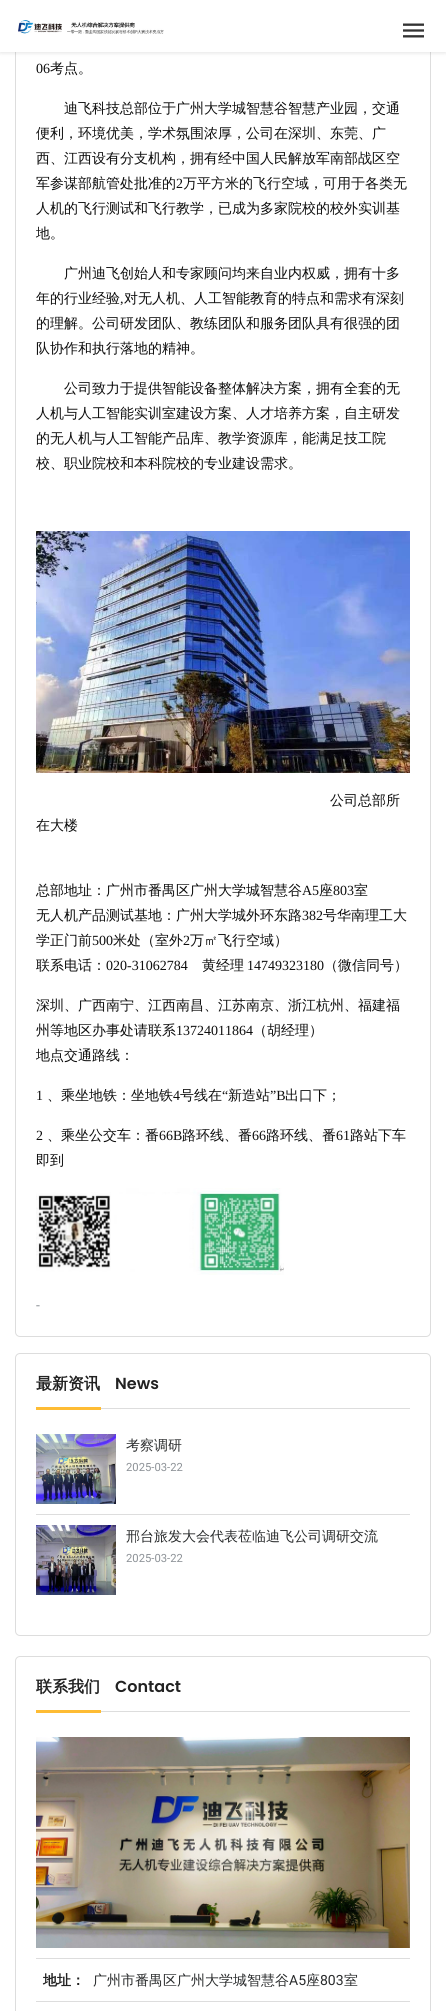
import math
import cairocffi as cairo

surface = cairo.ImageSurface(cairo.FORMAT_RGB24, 446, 2011)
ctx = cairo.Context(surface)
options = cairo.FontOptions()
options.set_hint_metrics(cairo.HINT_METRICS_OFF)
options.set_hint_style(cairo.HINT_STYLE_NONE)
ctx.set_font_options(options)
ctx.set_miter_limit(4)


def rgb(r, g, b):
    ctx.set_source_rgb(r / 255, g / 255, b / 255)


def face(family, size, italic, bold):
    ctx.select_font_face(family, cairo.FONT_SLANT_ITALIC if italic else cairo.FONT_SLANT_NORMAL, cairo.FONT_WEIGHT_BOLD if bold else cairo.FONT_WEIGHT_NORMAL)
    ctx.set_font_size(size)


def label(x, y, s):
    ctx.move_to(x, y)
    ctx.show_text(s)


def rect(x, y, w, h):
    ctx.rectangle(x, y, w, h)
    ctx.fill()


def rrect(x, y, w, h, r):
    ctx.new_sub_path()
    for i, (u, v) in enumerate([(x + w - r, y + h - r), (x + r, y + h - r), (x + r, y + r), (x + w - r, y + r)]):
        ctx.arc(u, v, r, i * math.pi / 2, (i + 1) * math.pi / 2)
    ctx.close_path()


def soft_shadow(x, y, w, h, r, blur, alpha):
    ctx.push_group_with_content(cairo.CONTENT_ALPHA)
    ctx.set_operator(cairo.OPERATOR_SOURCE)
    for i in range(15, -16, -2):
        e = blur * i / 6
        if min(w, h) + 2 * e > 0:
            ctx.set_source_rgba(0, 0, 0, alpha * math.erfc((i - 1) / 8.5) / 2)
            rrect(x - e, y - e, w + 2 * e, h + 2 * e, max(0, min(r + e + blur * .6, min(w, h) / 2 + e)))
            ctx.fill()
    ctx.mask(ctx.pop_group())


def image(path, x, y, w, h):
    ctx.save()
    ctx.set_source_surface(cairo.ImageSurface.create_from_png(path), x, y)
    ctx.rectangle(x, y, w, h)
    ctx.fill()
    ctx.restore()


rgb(255, 255, 255)
ctx.paint()
rrect(15.5, -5.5, 415, 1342, 4.5)
rgb(221, 221, 221)
ctx.set_line_width(1)
ctx.stroke()
rgb(0, 0, 0)
soft_shadow(0, 0, 446, 52, 0, 2.5, 0.15)
rgb(255, 255, 255)
rect(0, 0, 446, 52)
image('image0.png', 18, 20, 146, 14)
image('image1.png', 403, 23, 21, 15)
face('Liberation Serif', 14, 0, 0)
rgb(13, 13, 13)
label(36, 73, '06')
face('WenQuanYi Zen Hei Medium', 14, 0, 0)
label(50, 73, '考点。')
label(64, 113, '迪飞科技总部位于广州大学城智慧谷智慧产业园，交通')
label(36, 138, '便利，环境优美，学术氛围浓厚，公司在深圳、东莞、广')
label(36, 163, '西、江西设有分支机构，拥有经中国人民解放军南部战区空')
label(36, 188, '军参谋部航管处批准的')
face('Liberation Serif', 14, 0, 0)
label(176, 188, '2')
face('WenQuanYi Zen Hei Medium', 14, 0, 0)
label(183, 188, '万平方米的飞行空域，可用于各类无')
label(36, 213, '人机的飞行测试和飞行教学，已成为多家院校的校外实训基')
label(36, 238, '地。')
label(64, 278, '广州迪飞创始人和专家顾问均来自业内权威，拥有十多')
label(36, 303, '年的行业经验')
face('Liberation Serif', 14, 0, 0)
label(120, 303, ',')
face('WenQuanYi Zen Hei Medium', 14, 0, 0)
label(124, 303, '对无人机、人工智能教育的特点和需求有深刻')
label(36, 328, '的理解。公司研发团队、教练团队和服务团队具有很强的团')
label(36, 353, '队协作和执行落地的精神。')
label(64, 393, '公司致力于提供智能设备整体解决方案，拥有全套的无')
label(36, 418, '人机与人工智能实训室建设方案、人才培养方案，自主研发')
label(36, 443, '的无人机与人工智能产品库、教学资源库，能满足技工院')
label(36, 468, '校、职业院校和本科院校的专业建设需求。')
image('image2.png', 36, 531, 374, 242)
label(330, 805, '公司总部所')
label(36, 830, '在大楼')
label(36, 895, '总部地址：广州市番禺区广州大学城智慧谷')
face('Liberation Serif', 14, 0, 0)
label(302, 895, 'A5')
face('WenQuanYi Zen Hei Medium', 14, 0, 0)
label(319, 895, '座')
face('Liberation Serif', 14, 0, 0)
label(333, 895, '803')
face('WenQuanYi Zen Hei Medium', 14, 0, 0)
label(354, 895, '室')
label(36, 920, '无人机产品测试基地：广州大学城外环东路')
face('Liberation Serif', 14, 0, 0)
label(302, 920, '382')
face('WenQuanYi Zen Hei Medium', 14, 0, 0)
label(323, 920, '号华南理工大')
label(36, 945, '学正门前')
face('Liberation Serif', 14, 0, 0)
label(92, 945, '500')
face('WenQuanYi Zen Hei Medium', 14, 0, 0)
label(113, 945, '米处（室外')
face('Liberation Serif', 14, 0, 0)
label(183, 945, '2')
face('WenQuanYi Zen Hei Medium', 14, 0, 0)
label(190, 945, '万㎡飞行空域）')
label(36, 970, '联系电话：')
face('Liberation Serif', 14, 0, 0)
label(106, 970, '020-31062784')
face('WenQuanYi Zen Hei Medium', 14, 0, 0)
label(202, 970, '黄经理')
face('Liberation Serif', 14, 0, 0)
label(247, 970, '14749323180')
face('WenQuanYi Zen Hei Medium', 14, 0, 0)
label(324, 970, '（微信同号）')
label(36, 1010, '深圳、广西南宁、江西南昌、江苏南京、浙江杭州、福建福')
label(36, 1035, '州等地区办事处请联系')
face('Liberation Serif', 14, 0, 0)
label(176, 1035, '13724011864')
face('WenQuanYi Zen Hei Medium', 14, 0, 0)
label(253, 1035, '（胡经理）')
label(36, 1060, '地点交通路线：')
face('Liberation Serif', 14, 0, 0)
label(36, 1100, '1')
face('WenQuanYi Zen Hei Medium', 14, 0, 0)
label(47, 1100, '、乘坐地铁：坐地铁')
face('Liberation Serif', 14, 0, 0)
label(173, 1100, '4')
face('WenQuanYi Zen Hei Medium', 14, 0, 0)
label(180, 1100, '号线在')
face('Liberation Serif', 14, 0, 0)
label(222, 1100, '“')
face('WenQuanYi Zen Hei Medium', 14, 0, 0)
label(228, 1100, '新造站')
face('Liberation Serif', 14, 0, 0)
label(270, 1100, '”B')
face('WenQuanYi Zen Hei Medium', 14, 0, 0)
label(285, 1100, '出口下；')
face('Liberation Serif', 14, 0, 0)
label(36, 1140, '2')
face('WenQuanYi Zen Hei Medium', 14, 0, 0)
label(47, 1140, '、乘坐公交车：番')
face('Liberation Serif', 14, 0, 0)
label(159, 1140, '66B')
face('WenQuanYi Zen Hei Medium', 14, 0, 0)
label(182, 1140, '路环线、番')
face('Liberation Serif', 14, 0, 0)
label(252, 1140, '66')
face('WenQuanYi Zen Hei Medium', 14, 0, 0)
label(266, 1140, '路环线、番')
face('Liberation Serif', 14, 0, 0)
label(336, 1140, '61')
face('WenQuanYi Zen Hei Medium', 14, 0, 0)
label(350, 1140, '路站下车')
label(36, 1165, '即到')
image('image3.png', 36, 1188, 248, 87)
face('Roboto', 14, 0, 0)
rgb(141, 146, 151)
label(36, 1310, '-')
rrect(15.5, 1353.5, 415, 282, 4.5)
rgb(221, 221, 221)
ctx.stroke()
rect(101, 1408, 309, 1)
face('WenQuanYi Zen Hei', 16, 0, 1)
rgb(34, 34, 34)
label(36, 1389, '最新资讯')
face('Poppins SemiBold', 16, 0, 0)
label(115, 1389, 'News')
rgb(254, 188, 52)
rect(36, 1407, 65, 3)
rgb(221, 221, 221)
rect(36, 1514, 374, 1)
image('image4.png', 36, 1434, 80, 70)
face('WenQuanYi Zen Hei Medium', 14, 0, 0)
rgb(41, 43, 44)
label(126, 1450, '考察调研')
face('Roboto', 11.25, 0, 0)
rgb(141, 146, 151)
label(126, 1471, '2025-03-22')
image('image5.png', 36, 1525, 80, 70)
face('WenQuanYi Zen Hei Medium', 14, 0, 0)
rgb(41, 43, 44)
label(126, 1541, '邢台旅发大会代表莅临迪飞公司调研交流')
face('Roboto', 11.25, 0, 0)
rgb(141, 146, 151)
label(126, 1562, '2025-03-22')
rrect(15.5, 1656.5, 415, 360, 4.5)
rgb(221, 221, 221)
ctx.stroke()
rect(101, 1711, 309, 1)
face('WenQuanYi Zen Hei', 16, 0, 1)
rgb(34, 34, 34)
label(36, 1692, '联系我们')
face('Poppins SemiBold', 16, 0, 0)
label(115, 1692, 'Contact')
rgb(254, 188, 52)
rect(36, 1710, 65, 3)
rgb(221, 221, 221)
rect(36, 1958, 374, 1)
image('image6.png', 36, 1737, 374, 211)
rect(36, 2001, 374, 1)
face('WenQuanYi Zen Hei', 14, 0, 1)
rgb(34, 34, 34)
label(43, 1985, '地址：')
face('WenQuanYi Zen Hei Medium', 14, 0, 0)
rgb(41, 43, 44)
label(93, 1985, '广州市番禺区广州大学城智慧谷')
face('Roboto', 14, 0, 0)
label(289, 1985, 'A5')
face('WenQuanYi Zen Hei Medium', 14, 0, 0)
label(306, 1985, '座')
face('Roboto', 14, 0, 0)
label(320, 1985, '803')
face('WenQuanYi Zen Hei Medium', 14, 0, 0)
label(344, 1985, '室')
surface.write_to_png('render.png')
